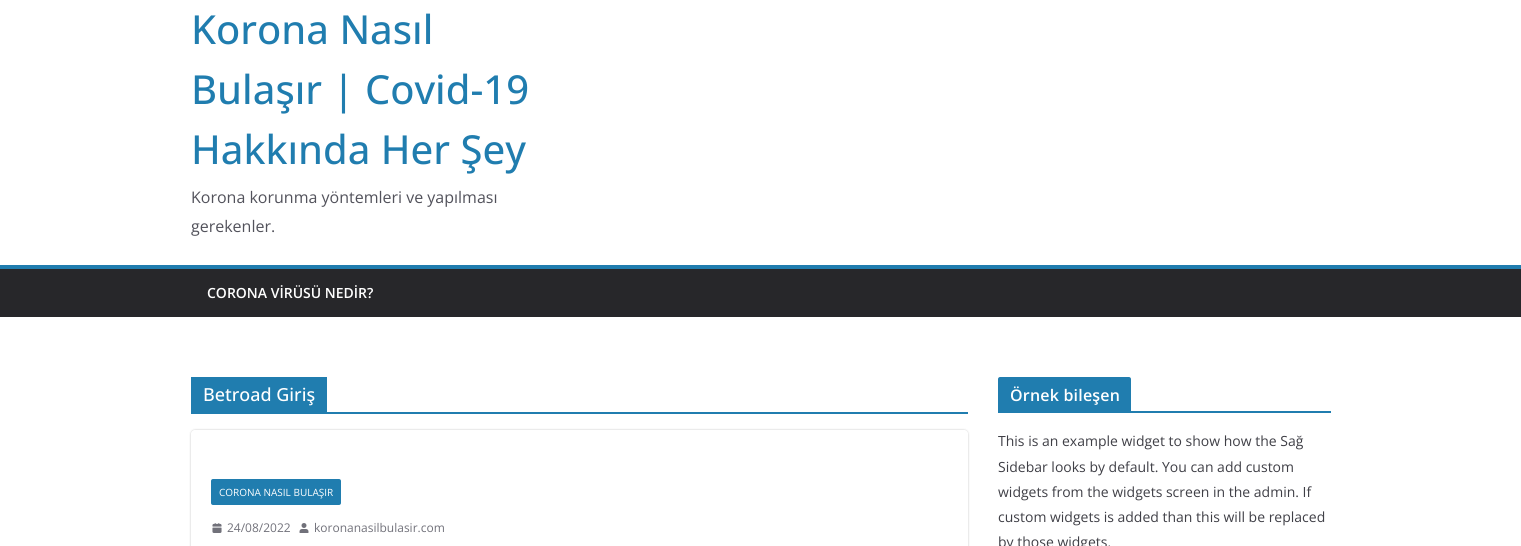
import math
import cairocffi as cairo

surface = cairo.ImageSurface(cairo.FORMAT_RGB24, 1521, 546)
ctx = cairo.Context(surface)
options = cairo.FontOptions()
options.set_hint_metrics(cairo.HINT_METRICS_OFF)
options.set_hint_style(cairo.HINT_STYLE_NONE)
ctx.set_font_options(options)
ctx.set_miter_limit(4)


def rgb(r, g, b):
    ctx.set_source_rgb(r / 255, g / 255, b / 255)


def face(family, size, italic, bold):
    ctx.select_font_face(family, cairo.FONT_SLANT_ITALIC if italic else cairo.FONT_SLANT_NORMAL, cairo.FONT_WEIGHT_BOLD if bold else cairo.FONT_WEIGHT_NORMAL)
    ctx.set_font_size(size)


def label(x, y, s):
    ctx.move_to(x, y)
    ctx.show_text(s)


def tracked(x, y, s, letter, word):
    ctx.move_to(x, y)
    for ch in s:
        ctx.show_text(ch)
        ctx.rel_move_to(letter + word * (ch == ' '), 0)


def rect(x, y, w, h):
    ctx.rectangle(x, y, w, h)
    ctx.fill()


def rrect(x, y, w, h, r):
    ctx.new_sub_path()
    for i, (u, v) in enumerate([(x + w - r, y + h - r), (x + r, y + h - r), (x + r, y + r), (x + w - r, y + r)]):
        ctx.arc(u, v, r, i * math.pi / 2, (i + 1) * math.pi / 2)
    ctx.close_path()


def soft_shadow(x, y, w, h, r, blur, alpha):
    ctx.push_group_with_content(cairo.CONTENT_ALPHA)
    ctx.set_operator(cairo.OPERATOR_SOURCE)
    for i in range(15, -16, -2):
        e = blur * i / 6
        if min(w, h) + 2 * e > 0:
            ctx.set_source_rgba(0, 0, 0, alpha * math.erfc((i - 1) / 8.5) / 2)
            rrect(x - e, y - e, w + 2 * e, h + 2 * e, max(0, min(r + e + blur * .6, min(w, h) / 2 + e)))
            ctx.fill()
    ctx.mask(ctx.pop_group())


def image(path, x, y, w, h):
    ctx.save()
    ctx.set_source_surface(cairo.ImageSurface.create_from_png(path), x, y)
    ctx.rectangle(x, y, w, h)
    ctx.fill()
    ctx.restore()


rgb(255, 255, 255)
ctx.paint()
face('Open Sans Medium', 40, 0, 0)
rgb(32, 125, 175)
label(191, 44, 'Korona Nasıl')
label(191, 104, 'Bulaşır | Covid-19')
label(191, 164, 'Hakkında Her Şey')
face('Open Sans', 16, 0, 0)
rgb(82, 82, 91)
label(191, 203, 'Korona korunma yöntemleri ve yapılması')
label(191, 232, 'gerekenler.')
rgb(39, 39, 42)
rect(0, 269, 1521, 48)
rgb(32, 125, 175)
rect(0, 265, 1521, 4)
face('Open Sans SemiBold', 14, 0, 0)
rgb(255, 255, 255)
label(207, 298, 'CORONA VİRÜSÜ NEDİR?')
rgb(32, 125, 175)
rect(191, 412, 777, 2)
rect(191, 377, 136, 35)
face('Open Sans Medium', 18, 0, 0)
rgb(255, 255, 255)
label(203, 401, 'Betroad Giriş')
ctx.save()
ctx.set_fill_rule(cairo.FILL_RULE_EVEN_ODD)
ctx.new_path()
ctx.move_to(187, 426)
ctx.line_to(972, 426)
ctx.line_to(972, 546)
ctx.line_to(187, 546)
ctx.close_path()
ctx.move_to(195, 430)
ctx.line_to(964, 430)
ctx.curve_to(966, 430, 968, 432, 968, 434)
ctx.line_to(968, 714)
ctx.curve_to(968, 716, 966, 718, 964, 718)
ctx.line_to(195, 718)
ctx.curve_to(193, 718, 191, 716, 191, 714)
ctx.line_to(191, 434)
ctx.curve_to(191, 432, 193, 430, 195, 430)
ctx.close_path()
ctx.clip()
rgb(0, 0, 0)
soft_shadow(191, 430, 777, 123, 4, 1, 0.24)
ctx.restore()
rgb(32, 125, 175)
rrect(211, 479, 130, 26, 2)
ctx.fill()
face('Open Sans', 10, 0, 0)
rgb(255, 255, 255)
label(219, 496, 'CORONA NASIL BULAŞIR')
image('image0.png', 212, 523, 10, 10)
face('Open Sans', 12, 0, 0)
rgb(113, 113, 122)
label(227, 532, '24/08/2022')
image('image1.png', 299, 523, 10, 10)
label(314, 532, 'koronanasilbulasir.com')
rgb(32, 125, 175)
rect(998, 411, 333, 2)
ctx.new_path()
ctx.move_to(1000, 377)
ctx.line_to(1129, 377)
ctx.curve_to(1130, 377, 1131, 378, 1131, 379)
ctx.line_to(1131, 411)
ctx.line_to(998, 411)
ctx.line_to(998, 379)
ctx.curve_to(998, 378, 999, 377, 1000, 377)
ctx.close_path()
ctx.fill()
face('Open Sans SemiBold', 16, 0, 0)
rgb(255, 255, 255)
tracked(1010, 401, 'Örnek bileşen', 0.2, 0)
face('Open Sans', 14, 0, 0)
rgb(63, 63, 70)
label(998, 446, 'This is an example widget to show how the Sağ')
label(998, 472, 'Sidebar looks by default. You can add custom')
label(998, 497, 'widgets from the widgets screen in the admin. If')
label(998, 522, 'custom widgets is added than this will be replaced')
label(998, 547, 'by those widgets.')
surface.write_to_png('render.png')
